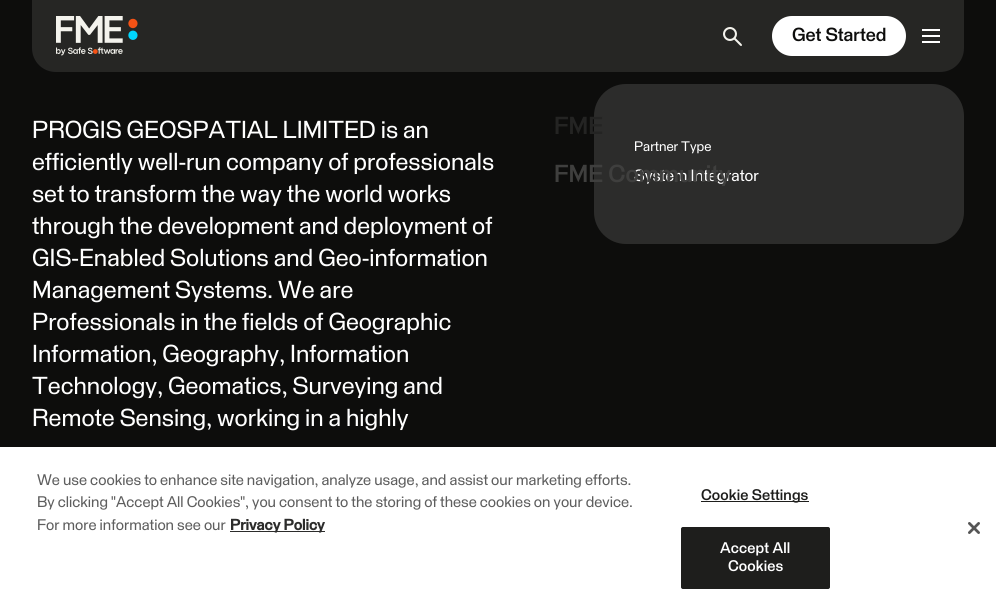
import math
import cairocffi as cairo

surface = cairo.ImageSurface(cairo.FORMAT_RGB24, 996, 609)
ctx = cairo.Context(surface)
options = cairo.FontOptions()
options.set_hint_metrics(cairo.HINT_METRICS_OFF)
options.set_hint_style(cairo.HINT_STYLE_NONE)
ctx.set_font_options(options)
ctx.set_miter_limit(4)


def rgb(r, g, b):
    ctx.set_source_rgb(r / 255, g / 255, b / 255)


def face(family, size, italic, bold):
    ctx.select_font_face(family, cairo.FONT_SLANT_ITALIC if italic else cairo.FONT_SLANT_NORMAL, cairo.FONT_WEIGHT_BOLD if bold else cairo.FONT_WEIGHT_NORMAL)
    ctx.set_font_size(size)


def label(x, y, s):
    ctx.move_to(x, y)
    ctx.show_text(s)


def tracked(x, y, s, letter, word):
    ctx.move_to(x, y)
    for ch in s:
        ctx.show_text(ch)
        ctx.rel_move_to(letter + word * (ch == ' '), 0)


def rect(x, y, w, h):
    ctx.rectangle(x, y, w, h)
    ctx.fill()


def rrect(x, y, w, h, r):
    ctx.new_sub_path()
    for i, (u, v) in enumerate([(x + w - r, y + h - r), (x + r, y + h - r), (x + r, y + r), (x + w - r, y + r)]):
        ctx.arc(u, v, r, i * math.pi / 2, (i + 1) * math.pi / 2)
    ctx.close_path()


def image(path, x, y, w, h):
    ctx.save()
    ctx.set_source_surface(cairo.ImageSurface.create_from_png(path), x, y)
    ctx.rectangle(x, y, w, h)
    ctx.fill()
    ctx.restore()


rgb(13, 13, 12)
ctx.paint()
ctx.set_source_rgba(0.173, 0.173, 0.169, 0.8)
ctx.new_path()
ctx.move_to(32, 0)
ctx.line_to(964, 0)
ctx.line_to(964, 48)
ctx.curve_to(964, 61.5, 953.5, 72, 940, 72)
ctx.line_to(56, 72)
ctx.curve_to(42.5, 72, 32, 61.5, 32, 48)
ctx.close_path()
ctx.fill()
image('image0.png', 56, 16, 82, 40)
image('image1.png', 723, 27, 19, 19)
rgb(255, 255, 255)
rrect(772, 16, 134, 40, 20)
ctx.fill()
face('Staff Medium', 18.5, 0, 0)
rgb(13, 13, 12)
label(792, 41, 'Get Started')
rgb(255, 255, 255)
rect(922, 29, 18, 2)
rect(922, 35, 18, 2)
rect(922, 41, 18, 2)
rgb(44, 44, 43)
rrect(594, 84, 370, 160, 32)
ctx.fill()
face('Staff Medium', 24, 0, 0)
rgb(36, 36, 35)
label(554, 134, 'FME')
face('Staff', 16, 0, 0)
rgb(255, 255, 255)
label(634, 181, 'System Integrator')
face('Staff Medium', 24, 0, 0)
rgb(63, 63, 62)
label(554, 182, 'FME Community')
face('Staff', 24, 0, 0)
rgb(255, 255, 255)
label(32, 138, 'PROGIS GEOSPATIAL LIMITED is an')
label(32, 170, 'efficiently well-run company of professionals')
label(32, 202, 'set to transform the way the world works')
label(32, 234, 'through the development and deployment of')
label(32, 266, 'GIS-Enabled Solutions and Geo-information')
label(32, 298, 'Management Systems. We are')
label(32, 330, 'Professionals in the fields of Geographic')
label(32, 362, 'Information, Geography, Information')
label(32, 394, 'Technology, Geomatics, Surveying and')
label(32, 426, 'Remote Sensing, working in a highly')
face('Staff', 13.5, 0, 0)
label(634, 151, 'Partner Type')
rect(0, 447, 996, 162)
face('Staff', 15.05, 0, 0)
rgb(94, 94, 94)
label(37, 485, 'We use cookies to enhance site navigation, analyze usage, and assist our marketing efforts.')
label(37, 507, 'By clicking "Accept All Cookies", you consent to the storing of these cookies on your device.')
label(37, 530, 'For more information see our')
rgb(44, 44, 43)
rect(230, 531, 95, 1)
face('Staff', 15.05, 0, 1)
label(230, 530, 'Privacy Policy')
rgb(30, 30, 28)
rect(701, 501, 108, 1)
face('Staff Medium', 15.05, 0, 0)
tracked(701, 500, 'Cookie Settings', 0.1, 0)
rrect(681.5, 527.5, 148, 61, 1.5)
ctx.fill_preserve()
ctx.set_line_width(1)
ctx.stroke()
rgb(255, 255, 255)
tracked(720, 553, 'Accept All', 0.1, 0)
tracked(728, 571, 'Cookies', 0.1, 0)
image('image2.png', 968, 522, 12, 12)
surface.write_to_png('render.png')
